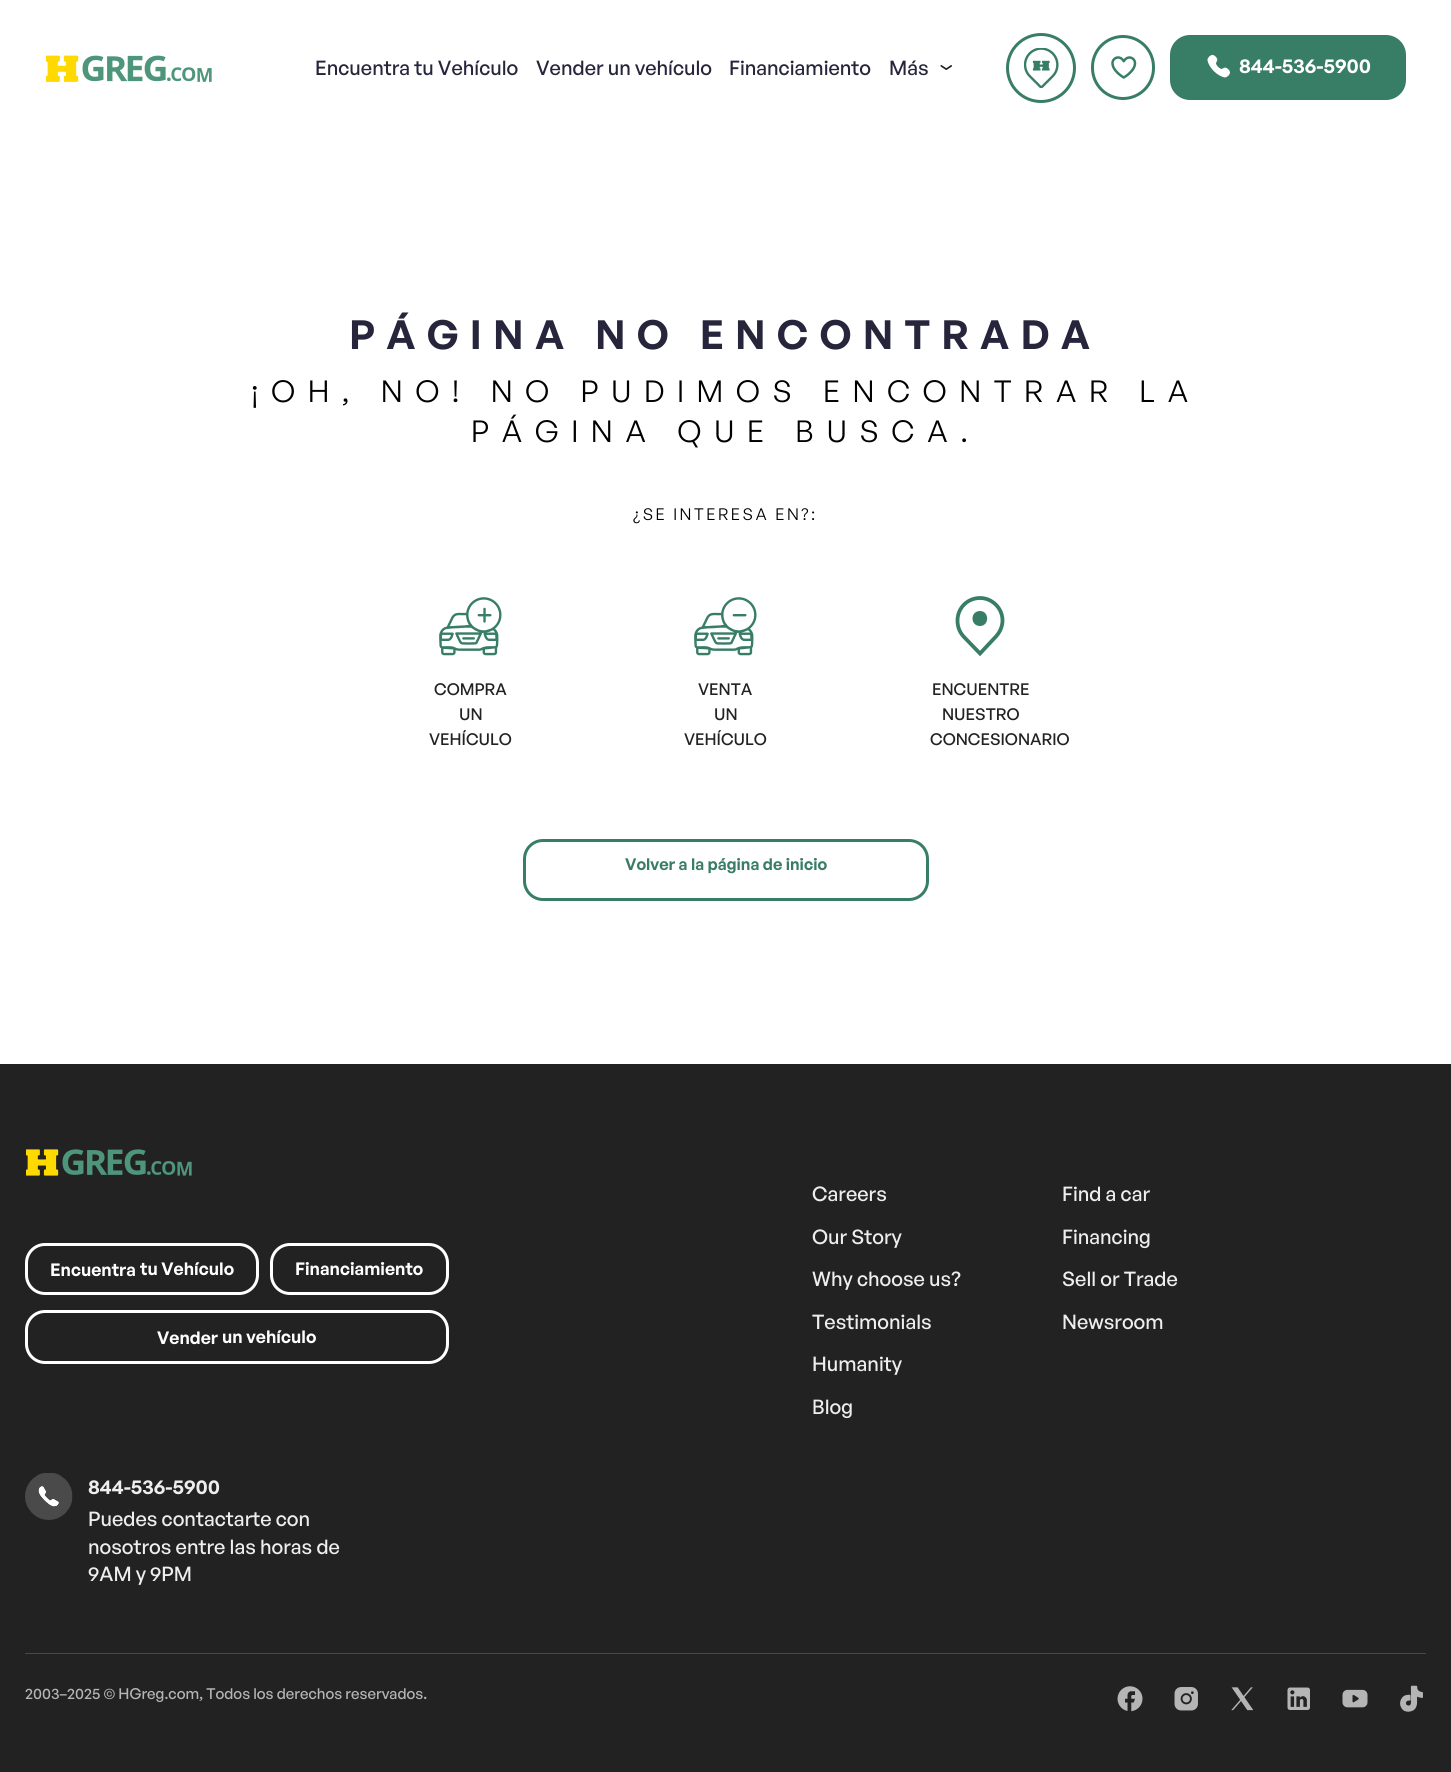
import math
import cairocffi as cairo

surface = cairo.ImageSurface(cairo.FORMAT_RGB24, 1451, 1772)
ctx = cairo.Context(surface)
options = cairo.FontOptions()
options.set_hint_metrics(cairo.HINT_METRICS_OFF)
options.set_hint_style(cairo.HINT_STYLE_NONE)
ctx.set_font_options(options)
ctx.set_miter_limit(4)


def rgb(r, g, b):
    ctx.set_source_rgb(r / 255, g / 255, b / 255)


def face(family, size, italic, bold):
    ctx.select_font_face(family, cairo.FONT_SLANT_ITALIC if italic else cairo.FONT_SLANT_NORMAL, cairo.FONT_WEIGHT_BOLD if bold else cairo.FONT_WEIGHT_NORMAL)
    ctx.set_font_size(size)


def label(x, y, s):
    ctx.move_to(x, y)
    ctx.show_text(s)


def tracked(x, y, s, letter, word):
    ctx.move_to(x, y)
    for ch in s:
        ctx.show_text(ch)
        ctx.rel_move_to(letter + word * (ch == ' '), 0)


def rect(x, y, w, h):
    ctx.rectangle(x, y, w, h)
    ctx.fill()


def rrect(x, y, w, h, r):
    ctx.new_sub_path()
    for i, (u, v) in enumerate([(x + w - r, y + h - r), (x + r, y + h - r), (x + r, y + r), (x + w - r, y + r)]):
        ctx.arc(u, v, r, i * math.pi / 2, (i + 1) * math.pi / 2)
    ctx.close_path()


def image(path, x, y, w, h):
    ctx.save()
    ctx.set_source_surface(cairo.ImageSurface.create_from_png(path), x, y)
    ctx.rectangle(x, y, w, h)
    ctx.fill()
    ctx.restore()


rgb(255, 255, 255)
ctx.paint()
image('image0.png', 46, 55, 166, 27)
face('General Sans Medium', 20, 0, 0)
rgb(38, 37, 60)
label(315, 75, 'Encuentra tu Vehículo')
label(536, 75, 'Vender un vehículo')
label(729, 75, 'Financiamiento')
label(889, 75, 'Más')
image('image1.png', 940, 65, 12, 5)
image('image2.png', 1024, 48, 35, 40)
ctx.arc(1041, 68, 33.5, 0, 2 * math.pi)
rgb(56, 125, 101)
ctx.set_line_width(3)
ctx.stroke()
image('image3.png', 1111, 56, 26, 23)
rrect(1092.5, 36.5, 61, 62, 30.5)
ctx.stroke()
rrect(1171.5, 36.5, 233, 62, 18.5)
ctx.fill_preserve()
ctx.stroke()
image('image4.png', 1207, 54, 23, 24)
face('General Sans SemiBold', 20, 0, 0)
rgb(255, 255, 255)
label(1239, 73, '844-536-5900')
face('General Sans SemiBold', 40, 0, 0)
rgb(38, 37, 60)
tracked(349, 349, 'PÁGINA NO ENCONTRADA', 11.25, 0)
face('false', 30, 0, 0)
rgb(0, 0, 0)
tracked(251, 402, '¡OH, NO! NO PUDIMOS ENCONTRAR LA', 12.5, 0)
tracked(471, 442, 'PÁGINA QUE BUSCA.', 12.5, 0)
face('false', 16.25, 0, 0)
tracked(633, 520, '¿SE INTERESA EN?:', 2.5, 0)
image('image5.png', 439, 597, 63, 59)
face('General Sans Medium', 16.25, 0, 0)
rgb(34, 34, 34)
label(434, 695, 'COMPRA')
label(459, 720, 'UN')
label(429, 745, 'VEHÍCULO')
image('image6.png', 694, 597, 63, 59)
label(698, 695, 'VENTA')
label(714, 720, 'UN')
label(684, 745, 'VEHÍCULO')
ctx.new_path()
ctx.move_to(1002.5, 620.5)
ctx.curve_to(1002.5, 608, 992, 598, 980, 598)
ctx.curve_to(967.5, 598, 957.5, 608, 957.5, 620.5)
ctx.curve_to(957.5, 627.5, 960, 633, 964.5, 637.5)
ctx.line_to(980, 653.5)
ctx.line_to(995, 637.5)
ctx.curve_to(999.5, 633, 1002.5, 627, 1002.5, 620.5)
ctx.close_path()
rgb(56, 125, 101)
ctx.set_line_width(3.8)
ctx.stroke()
ctx.set_fill_rule(cairo.FILL_RULE_EVEN_ODD)
ctx.new_path()
ctx.move_to(980, 611)
ctx.curve_to(970, 611, 970, 626, 980, 626)
ctx.curve_to(989.5, 626, 989.5, 611, 980, 611)
ctx.fill()
rgb(34, 34, 34)
label(932, 695, 'ENCUENTRE')
label(942, 720, 'NUESTRO')
label(930, 745, 'CONCESIONARIO')
rrect(524.5, 840.5, 403, 59, 18.5)
rgb(56, 125, 101)
ctx.set_line_width(3)
ctx.stroke()
face('General Sans SemiBold', 16.25, 0, 0)
label(625, 870, 'Volver a la página de inicio')
rgb(34, 34, 34)
rect(0, 1064, 1451, 708)
image('image7.png', 26, 1149, 166, 27)
rrect(26.5, 1244.5, 231, 49, 18.5)
rgb(255, 255, 255)
ctx.stroke()
face('General Sans SemiBold', 17.5, 0, 0)
label(50, 1276, 'Encuentra')
label(140, 1275, 'tu Vehículo')
rrect(271.5, 1244.5, 176, 49, 18.5)
ctx.stroke()
label(295, 1275, 'Financiamiento')
rrect(26.5, 1311.5, 421, 51, 18.5)
ctx.stroke()
label(157, 1344, 'Vender')
label(222, 1343, 'un vehículo')
face('General Sans Medium', 20, 0, 0)
rgb(238, 238, 238)
label(812, 1201, 'Careers')
label(812, 1244, 'Our Story')
label(812, 1286, 'Why choose us?')
label(812, 1329, 'Testimonials')
label(812, 1371, 'Humanity')
label(812, 1414, 'Blog')
label(1062, 1201, 'Find a car')
label(1062, 1244, 'Financing')
label(1062, 1286, 'Sell or Trade')
label(1062, 1329, 'Newsroom')
image('image8.png', 25, 1473, 48, 47)
face('General Sans SemiBold', 20, 0, 0)
label(88, 1494, '844-536-5900')
face('General Sans Medium', 20, 0, 0)
label(88, 1526, 'Puedes contactarte con')
label(88, 1554, 'nosotros entre las horas de')
label(88, 1581, '9AM y 9PM')
rgb(72, 72, 72)
rect(25, 1653, 1401, 1)
face('General Sans Medium', 15, 0, 0)
rgb(181, 181, 181)
label(25, 1699, '2003–2025 © HGreg.com, Todos los derechos reservados.')
image('image9.png', 1117, 1686, 26, 26)
image('image10.png', 1174, 1687, 24, 24)
image('image11.png', 1231, 1687, 23, 24)
image('image12.png', 1287, 1687, 23, 23)
image('image13.png', 1342, 1689, 26, 19)
image('image14.png', 1400, 1685, 23, 27)
surface.write_to_png('render.png')
